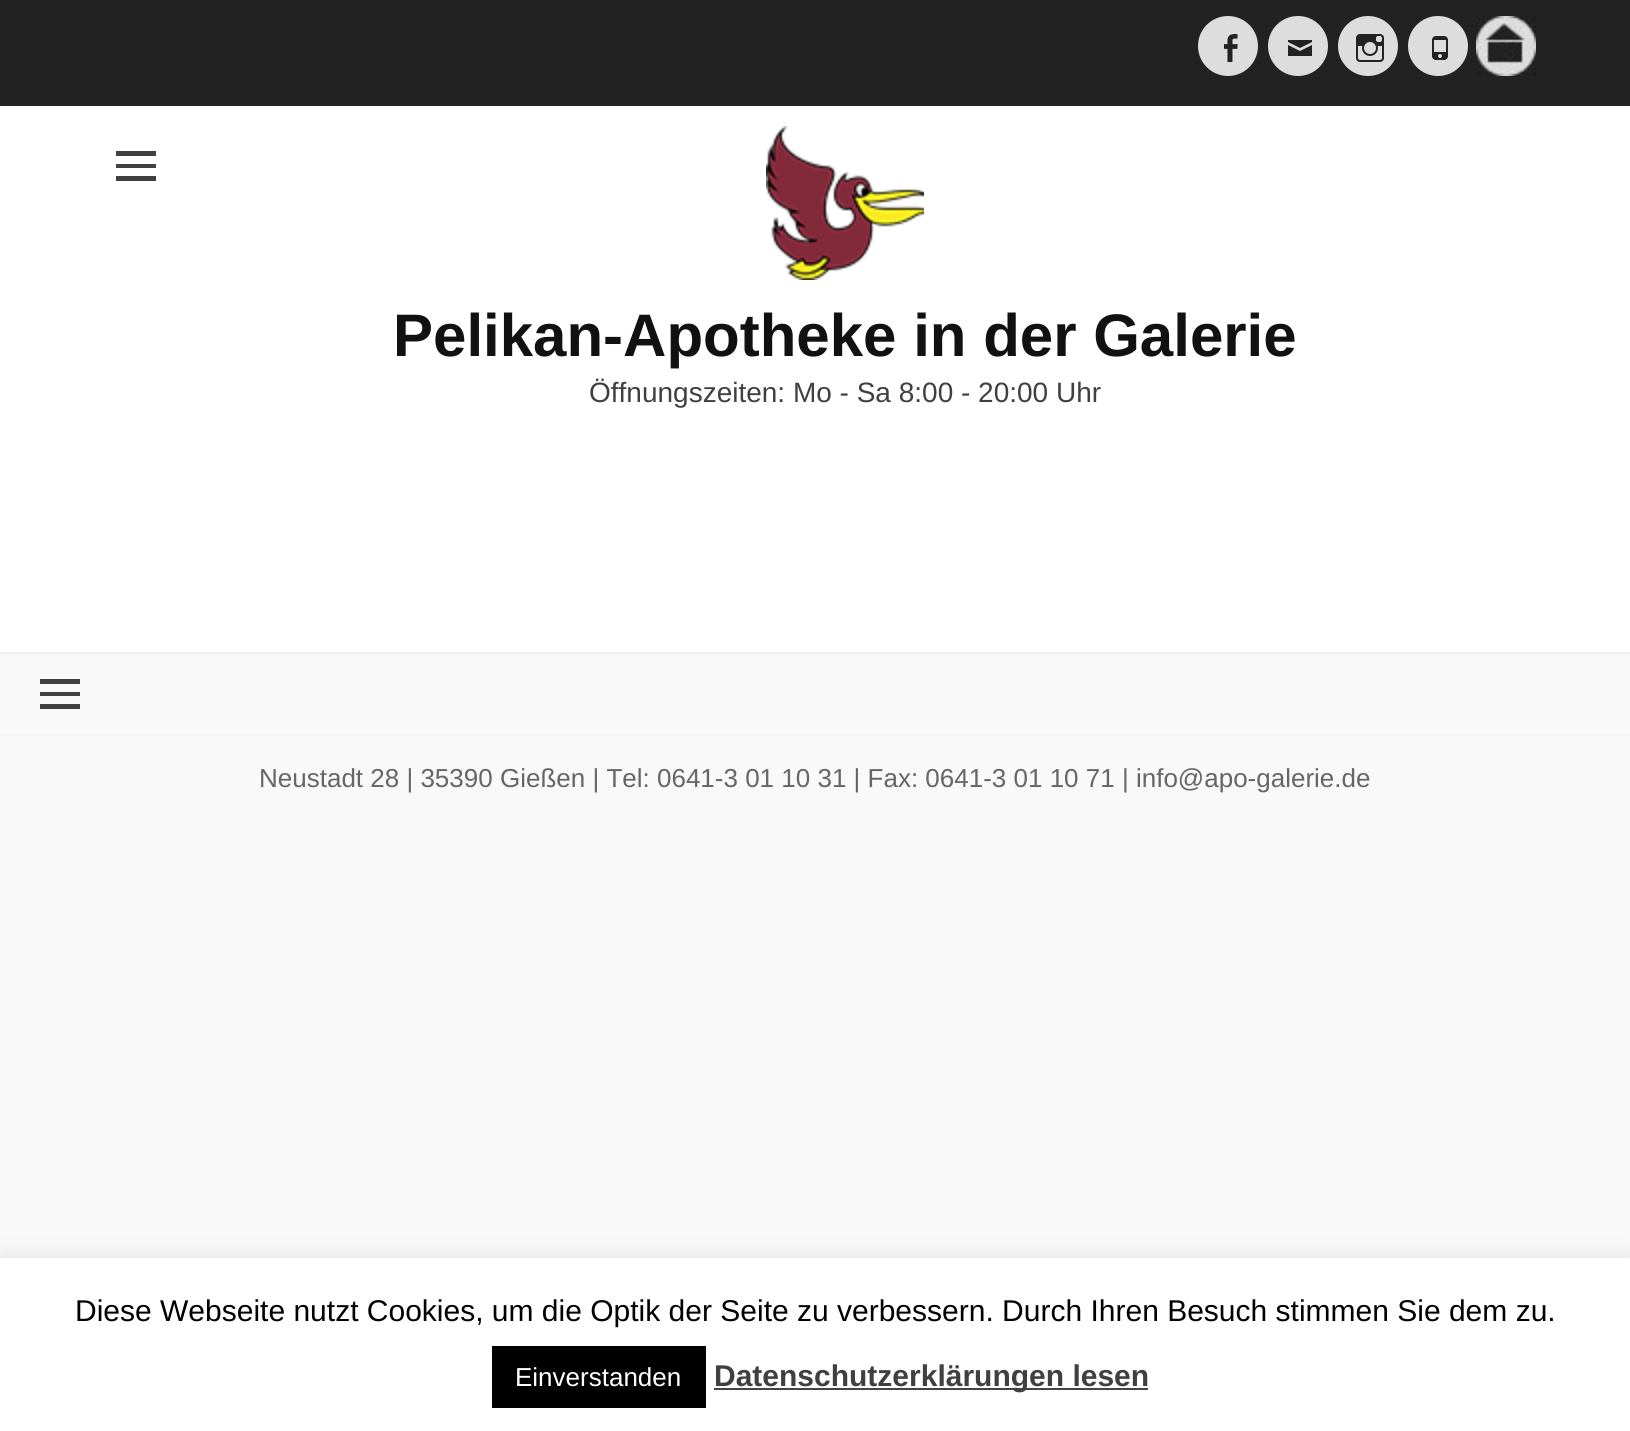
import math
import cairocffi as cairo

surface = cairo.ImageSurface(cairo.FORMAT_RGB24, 1630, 1431)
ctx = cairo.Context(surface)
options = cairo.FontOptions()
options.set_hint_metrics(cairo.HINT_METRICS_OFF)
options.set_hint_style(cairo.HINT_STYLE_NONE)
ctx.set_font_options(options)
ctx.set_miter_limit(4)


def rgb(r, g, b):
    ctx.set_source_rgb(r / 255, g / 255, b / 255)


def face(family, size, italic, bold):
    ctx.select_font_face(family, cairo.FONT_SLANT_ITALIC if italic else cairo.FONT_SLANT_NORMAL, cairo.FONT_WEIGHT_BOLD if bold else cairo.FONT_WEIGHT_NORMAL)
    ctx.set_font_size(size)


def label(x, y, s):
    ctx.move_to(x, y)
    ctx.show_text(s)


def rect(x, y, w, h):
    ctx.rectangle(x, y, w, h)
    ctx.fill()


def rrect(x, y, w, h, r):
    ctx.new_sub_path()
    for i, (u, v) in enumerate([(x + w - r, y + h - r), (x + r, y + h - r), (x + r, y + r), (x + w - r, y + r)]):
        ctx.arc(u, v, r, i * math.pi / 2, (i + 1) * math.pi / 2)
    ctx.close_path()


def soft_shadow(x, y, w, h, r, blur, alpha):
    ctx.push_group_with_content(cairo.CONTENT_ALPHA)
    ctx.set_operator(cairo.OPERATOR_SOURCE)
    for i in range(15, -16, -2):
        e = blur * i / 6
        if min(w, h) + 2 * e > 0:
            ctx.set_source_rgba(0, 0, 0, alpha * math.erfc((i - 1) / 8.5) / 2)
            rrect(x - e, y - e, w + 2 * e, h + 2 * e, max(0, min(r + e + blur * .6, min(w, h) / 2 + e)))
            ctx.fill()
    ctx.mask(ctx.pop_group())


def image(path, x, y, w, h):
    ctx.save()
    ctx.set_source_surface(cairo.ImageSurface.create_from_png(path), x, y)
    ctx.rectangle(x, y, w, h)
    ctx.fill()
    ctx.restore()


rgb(249, 249, 249)
ctx.paint()
rgb(34, 34, 34)
rect(0, 0, 1630, 106)
rgb(221, 221, 221)
ctx.arc(1228, 46, 30, 0, 2 * math.pi)
ctx.fill()
image('image0.png', 1224, 34, 14, 28)
ctx.arc(1298, 46, 30, 0, 2 * math.pi)
ctx.fill()
image('image1.png', 1288, 40, 24, 16)
ctx.arc(1368, 46, 30, 0, 2 * math.pi)
ctx.fill()
image('image2.png', 1356, 34, 28, 28)
ctx.arc(1438, 46, 30, 0, 2 * math.pi)
ctx.fill()
image('image3.png', 1432, 36, 16, 24)
image('image4.png', 1476, 16, 60, 60)
rgb(255, 255, 255)
rect(0, 106, 1630, 546)
rgb(64, 64, 64)
ctx.new_path()
ctx.move_to(116, 181)
ctx.line_to(116, 176)
ctx.line_to(156, 176)
ctx.line_to(156, 181)
ctx.close_path()
ctx.move_to(116, 151)
ctx.line_to(156, 151)
ctx.line_to(156, 156)
ctx.line_to(116, 156)
ctx.close_path()
ctx.move_to(116, 168)
ctx.line_to(116, 164)
ctx.line_to(156, 164)
ctx.line_to(156, 168)
ctx.close_path()
ctx.fill()
image('image5.png', 766, 126, 158, 154)
face('Liberation Sans', 60, 0, 1)
rgb(17, 17, 17)
label(393, 356, 'Pelikan-Apotheke in der Galerie')
face('Liberation Sans', 28, 0, 0)
rgb(64, 64, 64)
label(589, 402, 'Öffnungszeiten: Mo - Sa 8:00 - 20:00 Uhr')
rgb(238, 238, 238)
rect(0, 652, 1630, 2)
rgb(64, 64, 64)
ctx.new_path()
ctx.move_to(40, 709)
ctx.line_to(40, 704)
ctx.line_to(80, 704)
ctx.line_to(80, 709)
ctx.close_path()
ctx.move_to(40, 679)
ctx.line_to(80, 679)
ctx.line_to(80, 684)
ctx.line_to(40, 684)
ctx.close_path()
ctx.move_to(40, 696)
ctx.line_to(40, 692)
ctx.line_to(80, 692)
ctx.line_to(80, 696)
ctx.close_path()
ctx.fill()
rgb(244, 244, 244)
rect(0, 734, 1630, 2)
face('Liberation Sans', 26, 0, 0)
rgb(102, 102, 102)
label(259, 787, 'Neustadt 28 | 35390 Gießen | Tel: 0641-3 01 10 31 | Fax: 0641-3 01 10 71 | info@apo-galerie.de')
rgb(172, 171, 171)
soft_shadow(0, 1256, 1630, 174, 0, 10, 0.3)
rgb(255, 255, 255)
rect(0, 1258, 1630, 173)
face('Liberation Sans', 30, 0, 0)
rgb(0, 0, 0)
label(75, 1321, 'Diese Webseite nutzt Cookies, um die Optik der Seite zu verbessern. Durch Ihren Besuch stimmen Sie dem zu.')
rect(492, 1346, 214, 62)
face('Liberation Sans', 26, 0, 0)
rgb(255, 255, 255)
label(515, 1386, 'Einverstanden')
rgb(68, 68, 68)
rect(714, 1388, 434, 2)
face('Liberation Sans', 30, 0, 1)
rgb(64, 64, 64)
label(714, 1386, 'Datenschutzerklärungen lesen')
surface.write_to_png('render.png')
